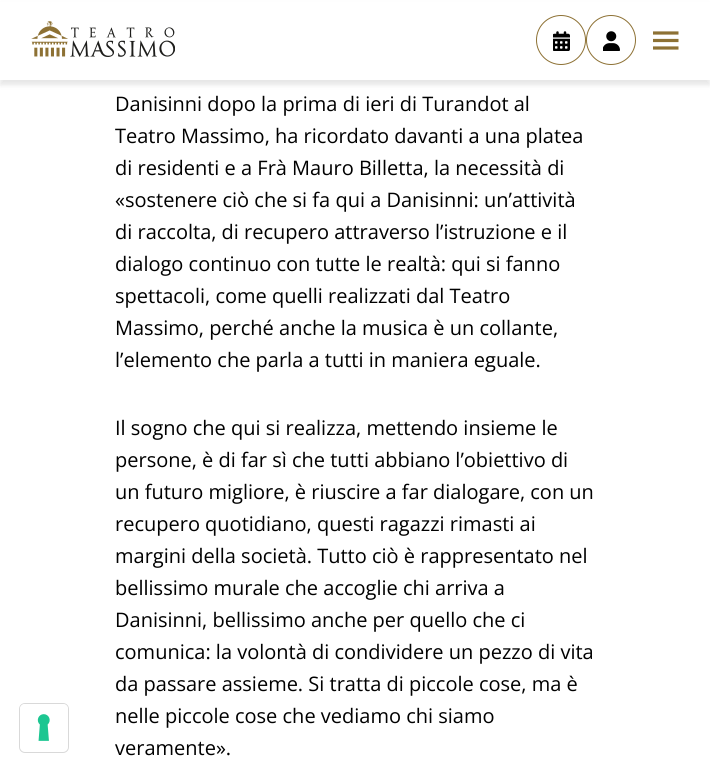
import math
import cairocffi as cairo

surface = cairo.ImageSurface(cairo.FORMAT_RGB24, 710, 771)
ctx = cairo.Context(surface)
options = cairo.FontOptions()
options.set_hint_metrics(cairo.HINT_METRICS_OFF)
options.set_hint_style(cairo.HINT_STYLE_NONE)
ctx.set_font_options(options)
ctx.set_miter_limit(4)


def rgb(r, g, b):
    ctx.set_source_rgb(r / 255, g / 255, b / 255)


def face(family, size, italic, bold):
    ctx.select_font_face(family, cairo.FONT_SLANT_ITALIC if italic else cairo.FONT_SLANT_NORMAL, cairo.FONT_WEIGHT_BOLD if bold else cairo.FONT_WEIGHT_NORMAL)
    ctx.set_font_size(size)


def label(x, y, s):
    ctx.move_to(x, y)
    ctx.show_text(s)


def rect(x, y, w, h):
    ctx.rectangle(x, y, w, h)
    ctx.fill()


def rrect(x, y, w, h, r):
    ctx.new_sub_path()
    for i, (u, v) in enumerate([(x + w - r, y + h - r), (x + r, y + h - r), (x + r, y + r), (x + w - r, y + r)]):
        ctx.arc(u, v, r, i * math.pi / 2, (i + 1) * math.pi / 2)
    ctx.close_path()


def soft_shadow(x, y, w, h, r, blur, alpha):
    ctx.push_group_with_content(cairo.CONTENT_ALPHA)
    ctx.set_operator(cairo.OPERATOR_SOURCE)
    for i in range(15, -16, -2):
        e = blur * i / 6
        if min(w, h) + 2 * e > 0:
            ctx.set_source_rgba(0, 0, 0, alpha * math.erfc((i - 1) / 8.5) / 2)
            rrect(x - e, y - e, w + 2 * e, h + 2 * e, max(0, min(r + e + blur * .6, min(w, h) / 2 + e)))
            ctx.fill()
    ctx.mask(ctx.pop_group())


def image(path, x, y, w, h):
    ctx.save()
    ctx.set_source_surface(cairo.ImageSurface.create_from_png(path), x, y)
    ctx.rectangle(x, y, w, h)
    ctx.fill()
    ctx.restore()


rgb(255, 255, 255)
ctx.paint()
rgb(0, 0, 0)
soft_shadow(0, 5, 710, 80, 0, 2.5, 0.1)
rgb(255, 255, 255)
rect(0, 2, 710, 78)
image('image0.png', 31, 21, 144, 36)
ctx.arc(561, 40, 24.5, 0, 2 * math.pi)
rgb(141, 113, 52)
ctx.set_line_width(1)
ctx.stroke()
image('image1.png', 553, 31, 17, 20)
ctx.arc(611, 40, 24.5, 0, 2 * math.pi)
ctx.stroke()
image('image2.png', 603, 31, 17, 20)
ctx.save()
ctx.rectangle(653, 31, 26, 19)
ctx.clip()
ctx.new_path()
ctx.move_to(652.5, 33)
ctx.line_to(678.5, 33)
ctx.move_to(652.5, 40.5)
ctx.line_to(678.5, 40.5)
ctx.move_to(652.5, 48)
ctx.line_to(678.5, 48)
ctx.set_line_width(3.2)
ctx.stroke()
ctx.restore()
rrect(19.5, 703.5, 49, 49, 5.5)
rgb(217, 217, 217)
ctx.stroke()
rgb(255, 255, 255)
rrect(20, 704, 48, 47, 5)
ctx.fill()
image('image3.png', 37, 714, 13, 27)
face('Open Sans', 20, 0, 0)
rgb(0, 0, 0)
label(115, 111, 'Danisinni dopo la prima di ieri di Turandot al')
label(115, 143, 'Teatro Massimo, ha ricordato davanti a una platea')
label(115, 175, 'di residenti e a Frà Mauro Billetta, la necessità di')
label(115, 207, '«sostenere ciò che si fa qui a Danisinni: un’attività')
label(115, 239, 'di raccolta, di recupero attraverso l’istruzione e il')
label(115, 271, 'dialogo continuo con tutte le realtà: qui si fanno')
label(115, 303, 'spettacoli, come quelli realizzati dal Teatro')
label(115, 335, 'Massimo, perché anche la musica è un collante,')
label(115, 367, 'l’elemento che parla a tutti in maniera eguale.')
label(115, 435, 'Il sogno che qui si realizza, mettendo insieme le')
label(115, 467, 'persone, è di far sì che tutti abbiano l’obiettivo di')
label(115, 499, 'un futuro migliore, è riuscire a far dialogare, con un')
label(115, 531, 'recupero quotidiano, questi ragazzi rimasti ai')
label(115, 563, 'margini della società. Tutto ciò è rappresentato nel')
label(115, 595, 'bellissimo murale che accoglie chi arriva a')
label(115, 627, 'Danisinni, bellissimo anche per quello che ci')
label(115, 659, 'comunica: la volontà di condividere un pezzo di vita')
label(115, 691, 'da passare assieme. Si tratta di piccole cose, ma è')
label(115, 723, 'nelle piccole cose che vediamo chi siamo')
label(115, 755, 'veramente».')
surface.write_to_png('render.png')
